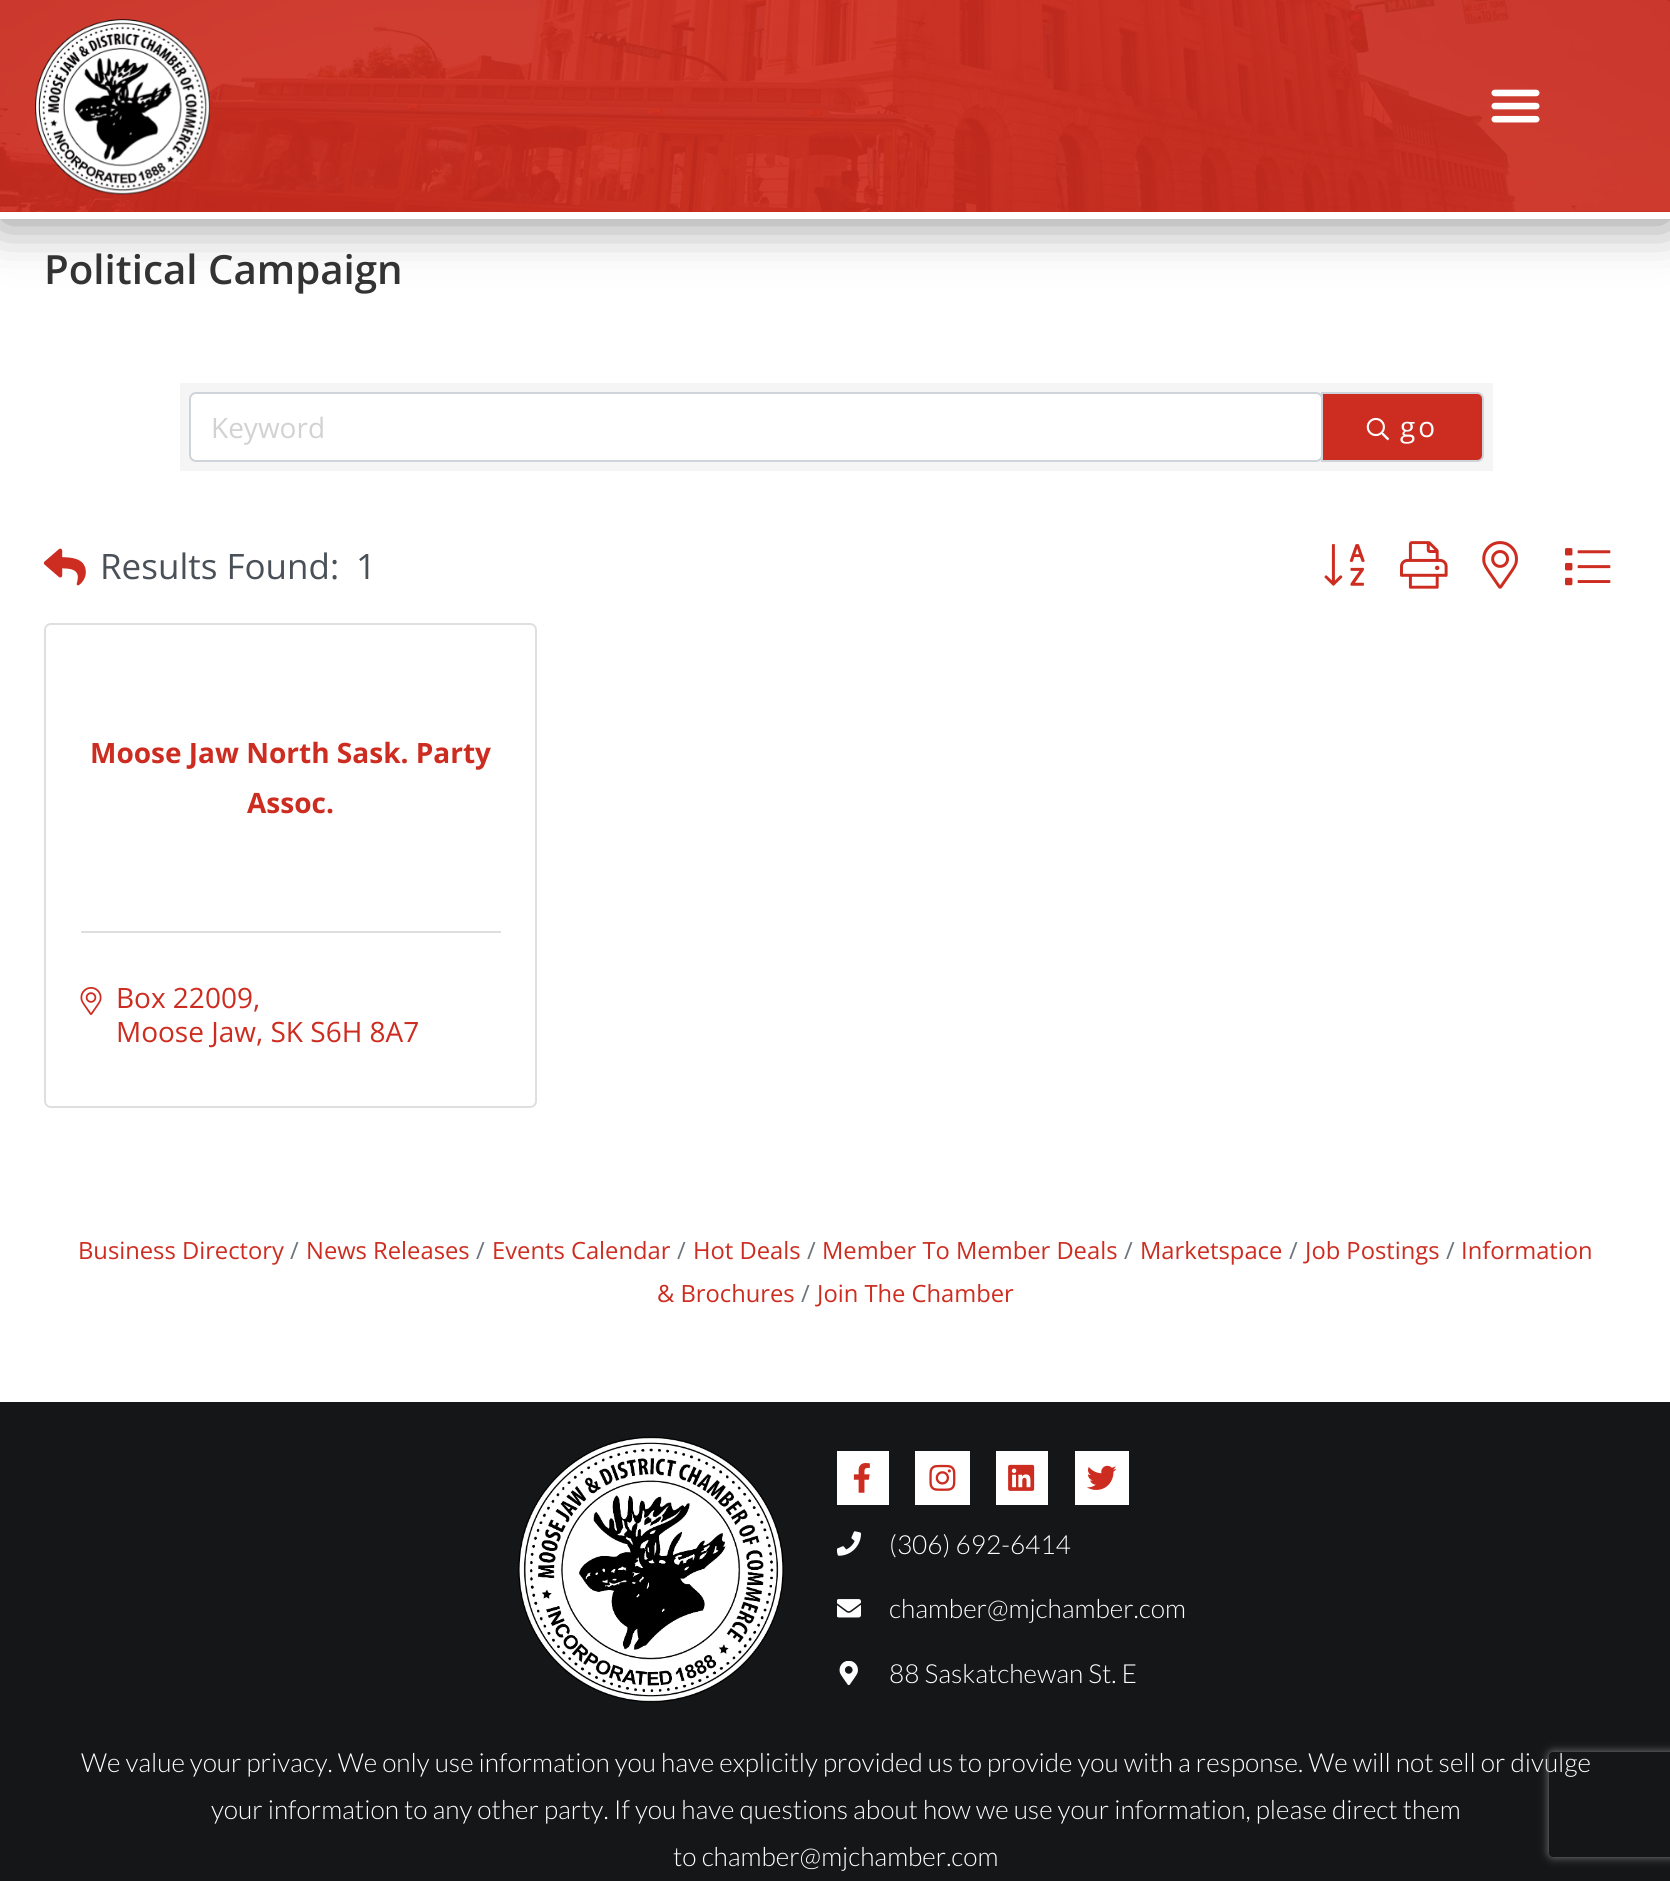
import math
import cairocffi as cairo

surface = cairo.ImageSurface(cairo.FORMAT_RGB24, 1670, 1881)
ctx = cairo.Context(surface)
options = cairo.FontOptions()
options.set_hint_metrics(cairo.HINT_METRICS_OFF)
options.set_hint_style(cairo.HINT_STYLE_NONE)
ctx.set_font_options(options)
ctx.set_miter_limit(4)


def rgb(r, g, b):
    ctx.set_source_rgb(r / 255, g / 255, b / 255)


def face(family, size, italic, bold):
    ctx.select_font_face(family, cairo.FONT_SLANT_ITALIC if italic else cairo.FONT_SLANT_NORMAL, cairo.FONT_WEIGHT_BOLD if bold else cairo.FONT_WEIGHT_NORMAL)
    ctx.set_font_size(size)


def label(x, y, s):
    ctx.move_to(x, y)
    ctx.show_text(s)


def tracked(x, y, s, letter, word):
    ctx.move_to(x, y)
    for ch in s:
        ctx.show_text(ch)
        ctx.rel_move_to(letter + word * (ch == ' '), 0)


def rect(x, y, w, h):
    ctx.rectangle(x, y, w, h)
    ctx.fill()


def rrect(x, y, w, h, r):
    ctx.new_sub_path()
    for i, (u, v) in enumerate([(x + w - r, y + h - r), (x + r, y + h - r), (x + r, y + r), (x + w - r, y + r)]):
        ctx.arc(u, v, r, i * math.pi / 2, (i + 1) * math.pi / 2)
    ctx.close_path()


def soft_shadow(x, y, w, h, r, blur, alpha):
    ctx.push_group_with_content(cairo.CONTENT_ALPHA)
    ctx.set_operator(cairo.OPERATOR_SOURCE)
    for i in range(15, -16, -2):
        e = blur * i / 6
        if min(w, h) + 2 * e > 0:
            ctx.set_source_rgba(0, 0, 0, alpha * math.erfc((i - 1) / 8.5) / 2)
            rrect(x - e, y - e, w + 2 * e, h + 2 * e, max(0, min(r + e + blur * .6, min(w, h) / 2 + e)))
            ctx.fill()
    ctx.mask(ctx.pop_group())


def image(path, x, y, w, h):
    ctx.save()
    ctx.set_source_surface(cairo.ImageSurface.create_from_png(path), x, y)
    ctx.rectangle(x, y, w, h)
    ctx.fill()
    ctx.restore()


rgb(255, 255, 255)
ctx.paint()
rgb(0, 0, 0)
soft_shadow(0, 4, 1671, 218, 0, 26, 0.45)
rgb(205, 45, 32)
rect(0, 0, 1670, 212)
rgb(255, 255, 255)
rect(0, 212, 1670, 7)
image('image0.png', 0, 0, 1670, 212)
image('image1.png', 35, 19, 175, 176)
image('image2.png', 1491, 89, 49, 34)
face('Open Sans SemiBold', 40.25, 0, 0)
rgb(51, 51, 51)
label(44, 284, 'Political Campaign')
rgb(245, 245, 245)
rect(180, 383, 1313, 88)
rgb(255, 255, 255)
rrect(190, 393, 1132, 68, 6)
ctx.fill_preserve()
rgb(206, 212, 218)
ctx.stroke()
face('Open Sans', 28, 0, 0)
rgb(210, 210, 210)
label(211, 438, 'Keyword')
rgb(205, 45, 32)
ctx.new_path()
ctx.move_to(1322, 393)
ctx.line_to(1477, 393)
ctx.curve_to(1480.5, 393, 1483, 395.5, 1483, 399)
ctx.line_to(1483, 455)
ctx.curve_to(1483, 458.5, 1480.5, 461, 1477, 461)
ctx.line_to(1322, 461)
ctx.close_path()
ctx.fill_preserve()
rgb(206, 212, 218)
ctx.stroke()
image('image3.png', 1366, 417, 24, 24)
rgb(255, 255, 255)
tracked(1400, 437, 'go', 3, 0)
image('image4.png', 43, 548, 43, 38)
face('Open Sans', 35, 0, 0)
rgb(73, 80, 87)
label(100, 579, 'Results Found:')
label(356, 579, '1')
image('image5.png', 1324, 544, 41, 42)
image('image6.png', 1400, 541, 48, 48)
image('image7.png', 1482, 541, 36, 48)
image('image8.png', 1565, 548, 46, 38)
rrect(45, 624, 491, 483, 6)
rgb(223, 223, 223)
ctx.stroke()
face('Open Sans', 28, 0, 1)
rgb(205, 45, 32)
label(90, 763, 'Moose Jaw North Sask. Party')
label(247, 813, 'Assoc.')
rgb(223, 223, 223)
rect(81, 931, 420, 2)
image('image9.png', 80, 987, 22, 28)
face('Open Sans', 28, 0, 0)
rgb(205, 45, 32)
label(116, 1008, 'Box 22009,')
label(116, 1042, 'Moose Jaw, SK S6H 8A7')
face('Open Sans', 23.75, 0, 0)
rgb(108, 117, 125)
label(290, 1259, '/')
rgb(205, 45, 32)
label(306, 1259, 'News Releases')
rgb(108, 117, 125)
label(476, 1259, '/')
rgb(205, 45, 32)
label(492, 1259, 'Events Calendar')
rgb(108, 117, 125)
label(1446, 1259, '/')
rgb(205, 45, 32)
label(1461, 1259, 'Information')
label(657, 1302, '& Brochures')
label(78, 1259, 'Business Directory')
rgb(108, 117, 125)
label(677, 1259, '/')
rgb(205, 45, 32)
label(693, 1259, 'Hot Deals')
rgb(108, 117, 125)
label(807, 1259, '/')
rgb(205, 45, 32)
label(822, 1259, 'Member To Member Deals')
rgb(108, 117, 125)
label(1124, 1259, '/')
rgb(205, 45, 32)
label(1140, 1259, 'Marketspace')
rgb(108, 117, 125)
label(1289, 1259, '/')
rgb(205, 45, 32)
label(1305, 1259, 'Job Postings')
rgb(108, 117, 125)
label(801, 1302, '/')
rgb(205, 45, 32)
label(817, 1302, 'Join The Chamber')
rgb(21, 22, 23)
rect(0, 1402, 1670, 479)
image('image10.png', 518, 1436, 266, 267)
rgb(255, 255, 255)
rect(837, 1451, 52, 54)
image('image11.png', 853, 1463, 17, 30)
rect(915, 1451, 55, 54)
image('image12.png', 929, 1464, 27, 27)
rect(996, 1451, 52, 54)
image('image13.png', 1008, 1464, 27, 27)
rect(1075, 1451, 54, 54)
image('image14.png', 1087, 1465, 30, 25)
image('image15.png', 837, 1531, 24, 25)
face('Lato Light', 26.25, 0, 0)
label(889, 1554, '(306) 692-6414')
image('image16.png', 837, 1599, 24, 19)
label(889, 1618, 'chamber@mjchamber.com')
image('image17.png', 839, 1661, 19, 24)
label(889, 1683, '88 Saskatchewan St. E')
label(81, 1772, 'We value your privacy. We only use information you have explicitly provided us to provide you with a response. We will not sell or divulge')
label(211, 1819, 'your information to any other party. If you have questions about how we use your information, please direct them')
label(673, 1866, 'to chamber@mjchamber.com')
ctx.save()
ctx.set_fill_rule(cairo.FILL_RULE_EVEN_ODD)
ctx.new_path()
ctx.move_to(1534, 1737)
ctx.line_to(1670, 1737)
ctx.line_to(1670, 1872)
ctx.line_to(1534, 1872)
ctx.close_path()
ctx.move_to(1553, 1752)
ctx.line_to(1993, 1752)
ctx.curve_to(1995, 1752, 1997, 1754, 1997, 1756)
ctx.line_to(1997, 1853)
ctx.curve_to(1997, 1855, 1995, 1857, 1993, 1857)
ctx.line_to(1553, 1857)
ctx.curve_to(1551, 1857, 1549, 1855, 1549, 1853)
ctx.line_to(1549, 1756)
ctx.curve_to(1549, 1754, 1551, 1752, 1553, 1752)
ctx.close_path()
ctx.clip()
rgb(128, 128, 128)
soft_shadow(1549, 1752, 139, 105, 4, 4.5, 1)
ctx.restore()
surface.write_to_png('render.png')
